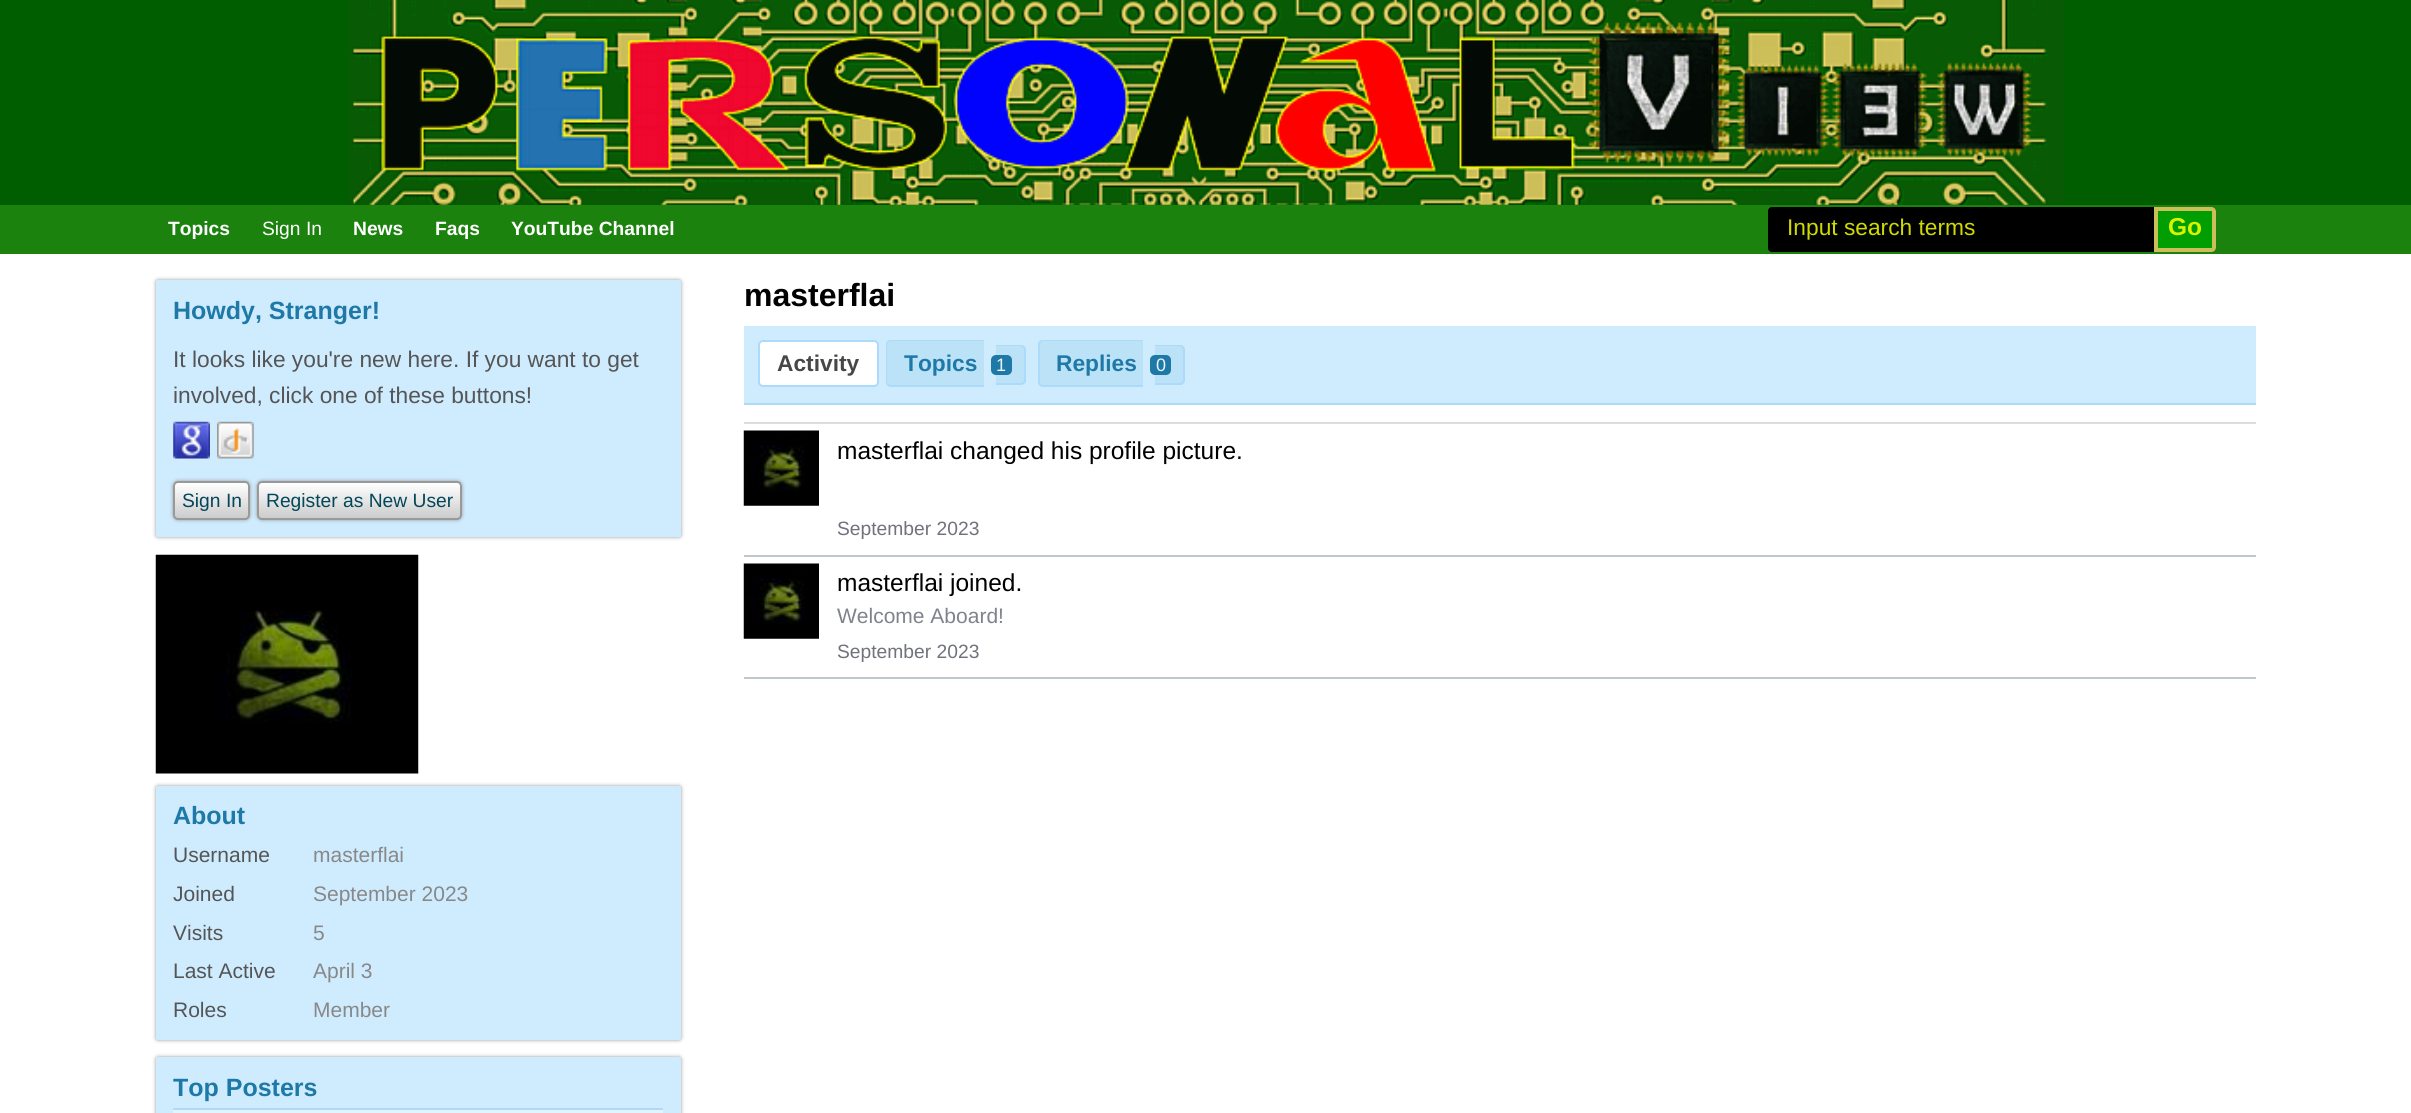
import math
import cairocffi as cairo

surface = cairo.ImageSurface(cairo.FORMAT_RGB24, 2411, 1113)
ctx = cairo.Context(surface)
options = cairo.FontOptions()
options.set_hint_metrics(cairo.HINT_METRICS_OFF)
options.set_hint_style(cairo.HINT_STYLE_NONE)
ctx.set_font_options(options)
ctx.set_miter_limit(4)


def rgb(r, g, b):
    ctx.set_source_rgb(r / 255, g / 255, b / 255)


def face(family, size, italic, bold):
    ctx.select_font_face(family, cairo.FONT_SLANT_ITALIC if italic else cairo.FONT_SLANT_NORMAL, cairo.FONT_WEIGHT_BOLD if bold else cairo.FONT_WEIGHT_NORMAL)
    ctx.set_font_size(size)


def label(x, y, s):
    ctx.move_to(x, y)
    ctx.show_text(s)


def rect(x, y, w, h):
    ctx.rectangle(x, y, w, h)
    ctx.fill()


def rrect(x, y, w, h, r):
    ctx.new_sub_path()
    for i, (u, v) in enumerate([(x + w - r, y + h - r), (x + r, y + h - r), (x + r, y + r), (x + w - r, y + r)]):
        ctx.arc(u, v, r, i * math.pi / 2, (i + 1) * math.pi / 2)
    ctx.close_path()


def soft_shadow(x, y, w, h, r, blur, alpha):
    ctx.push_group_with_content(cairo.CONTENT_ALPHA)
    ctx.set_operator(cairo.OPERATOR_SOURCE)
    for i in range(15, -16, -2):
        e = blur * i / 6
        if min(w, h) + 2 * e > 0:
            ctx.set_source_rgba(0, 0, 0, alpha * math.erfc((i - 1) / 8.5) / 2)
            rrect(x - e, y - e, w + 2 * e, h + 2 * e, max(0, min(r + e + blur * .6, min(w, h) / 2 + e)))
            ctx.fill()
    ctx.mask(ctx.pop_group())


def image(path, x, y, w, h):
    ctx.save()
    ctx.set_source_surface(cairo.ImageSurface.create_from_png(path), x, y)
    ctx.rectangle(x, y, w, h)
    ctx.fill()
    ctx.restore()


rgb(255, 255, 255)
ctx.paint()
rgb(0, 94, 0)
rect(0, 0, 2411, 205)
image('image0.png', 348, 0, 1715, 205)
rgb(27, 130, 14)
rect(0, 205, 2411, 49)
face('Liberation Sans', 19.25, 0, 1)
rgb(255, 255, 255)
label(168, 235, 'Topics')
face('Liberation Sans', 19.25, 0, 0)
label(262, 235, 'Sign In')
face('Liberation Sans', 19.25, 0, 1)
label(353, 235, 'News')
label(435, 235, 'Faqs')
label(511, 235, 'YouTube Channel')
rgb(0, 0, 0)
rrect(1768, 207, 448, 45, 4)
ctx.fill()
face('Liberation Sans', 22.75, 0, 0)
rgb(208, 218, 0)
label(1787, 235, 'Input search terms')
rgb(0, 158, 0)
ctx.new_path()
ctx.move_to(2156, 209)
ctx.line_to(2212, 209)
ctx.curve_to(2213, 209, 2214, 210, 2214, 211)
ctx.line_to(2214, 248)
ctx.curve_to(2214, 249, 2213, 250, 2212, 250)
ctx.line_to(2156, 250)
ctx.close_path()
ctx.fill_preserve()
rgb(204, 190, 89)
ctx.set_line_width(4)
ctx.stroke()
face('Liberation Sans', 24.5, 0, 1)
rgb(215, 244, 0)
label(2168, 235, 'Go')
rgb(153, 153, 153)
soft_shadow(156, 280, 525, 257, 2, 2, 1)
rgb(207, 236, 255)
rrect(156, 280, 525, 257, 2)
ctx.fill()
face('Liberation Sans', 25, 0, 1)
rgb(30, 121, 167)
label(173, 319, 'Howdy, Stranger!')
face('Liberation Sans', 22.75, 0, 0)
rgb(85, 85, 85)
label(173, 367, 'It looks like you\'re new here. If you want to get')
label(173, 403, 'involved, click one of these buttons!')
image('image1.png', 173, 421, 37, 38)
image('image2.png', 217, 421, 37, 38)
rgb(153, 153, 153)
soft_shadow(173, 481, 77, 39, 5, 2, 1)
ctx.save()
rrect(173, 481, 77, 39, 5)
ctx.clip()
gradient = cairo.LinearGradient(212, 518, 212, 483)
gradient.add_color_stop_rgba(0, 0.8, 0.8, 0.8, 1)
gradient.add_color_stop_rgba(1, 1, 1, 1, 1)
ctx.set_source(gradient)
rect(173, 483, 77, 35)
ctx.restore()
rrect(174, 482, 75, 37, 4)
rgb(153, 153, 153)
ctx.set_line_width(2)
ctx.stroke()
face('Liberation Sans', 19.25, 0, 0)
rgb(2, 71, 90)
label(182, 507, 'Sign In')
rgb(153, 153, 153)
soft_shadow(257, 481, 205, 39, 5, 2, 1)
ctx.save()
rrect(257, 481, 205, 39, 5)
ctx.clip()
gradient = cairo.LinearGradient(360, 518, 360, 483)
gradient.add_color_stop_rgba(0, 0.8, 0.8, 0.8, 1)
gradient.add_color_stop_rgba(1, 1, 1, 1, 1)
ctx.set_source(gradient)
rect(257, 483, 205, 35)
ctx.restore()
rrect(258, 482, 203, 37, 4)
rgb(153, 153, 153)
ctx.stroke()
rgb(2, 71, 90)
label(266, 507, 'Register as New User')
image('image3.png', 155, 554, 264, 220)
rgb(153, 153, 153)
soft_shadow(156, 786, 525, 254, 2, 2, 1)
rgb(207, 236, 255)
rrect(156, 786, 525, 254, 2)
ctx.fill()
face('Liberation Sans', 25, 0, 1)
rgb(30, 121, 167)
label(173, 824, 'About')
face('Liberation Sans', 21, 0, 0)
rgb(85, 85, 85)
label(173, 862, 'Username')
rgb(136, 136, 136)
label(313, 862, 'masterflai')
rgb(85, 85, 85)
label(173, 901, 'Joined')
rgb(136, 136, 136)
label(313, 901, 'September 2023')
rgb(85, 85, 85)
label(173, 940, 'Visits')
rgb(136, 136, 136)
label(313, 940, '5')
rgb(85, 85, 85)
label(173, 978, 'Last Active')
rgb(136, 136, 136)
label(313, 978, 'April 3')
rgb(85, 85, 85)
label(173, 1017, 'Roles')
rgb(136, 136, 136)
label(313, 1017, 'Member')
rgb(153, 153, 153)
soft_shadow(156, 1057, 525, 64, 2, 2, 1)
rgb(207, 236, 255)
rrect(156, 1057, 525, 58, 2)
ctx.fill()
face('Liberation Sans', 25, 0, 1)
rgb(30, 121, 167)
label(173, 1096, 'Top Posters')
rgb(171, 218, 251)
rect(173, 1108, 490, 2)
rgb(227, 244, 255)
rect(173, 1110, 490, 3)
face('Liberation Sans', 32, 0, 1)
rgb(0, 0, 0)
label(744, 306, 'masterflai')
rgb(207, 236, 255)
rect(744, 326, 1512, 77)
rgb(171, 218, 251)
rect(744, 403, 1512, 2)
rgb(255, 255, 255)
rrect(759, 341, 119, 45, 4)
ctx.fill_preserve()
rgb(171, 218, 251)
ctx.stroke()
face('Liberation Sans', 22.75, 0, 1)
rgb(71, 71, 71)
label(777, 371, 'Activity')
rgb(187, 226, 247)
ctx.new_path()
ctx.move_to(891, 340)
ctx.line_to(984, 340)
ctx.line_to(984, 387)
ctx.line_to(891, 387)
ctx.curve_to(888, 387, 886, 385, 886, 382)
ctx.line_to(886, 345)
ctx.curve_to(886, 342, 888, 340, 891, 340)
ctx.close_path()
ctx.fill()
rgb(171, 218, 251)
ctx.set_fill_rule(cairo.FILL_RULE_EVEN_ODD)
ctx.new_path()
ctx.move_to(891, 340)
ctx.line_to(984, 340)
ctx.line_to(984, 387)
ctx.line_to(891, 387)
ctx.curve_to(888, 387, 886, 384, 886, 382)
ctx.line_to(886, 345)
ctx.curve_to(886, 342, 888, 340, 891, 340)
ctx.close_path()
ctx.move_to(891, 341)
ctx.line_to(984, 341)
ctx.line_to(984, 385)
ctx.line_to(891, 385)
ctx.curve_to(889, 385, 887, 383, 887, 382)
ctx.line_to(887, 345)
ctx.curve_to(887, 343, 889, 341, 891, 341)
ctx.close_path()
ctx.fill()
rgb(30, 121, 167)
label(904, 371, 'Topics')
rgb(187, 226, 247)
ctx.new_path()
ctx.move_to(996, 345)
ctx.line_to(1021, 345)
ctx.curve_to(1024, 345, 1026, 347, 1026, 350)
ctx.line_to(1026, 380)
ctx.curve_to(1026, 383, 1024, 385, 1021, 385)
ctx.line_to(996, 385)
ctx.close_path()
ctx.fill()
rgb(171, 218, 251)
ctx.new_path()
ctx.move_to(996, 345)
ctx.line_to(1020, 345)
ctx.curve_to(1023, 345, 1026, 347, 1026, 350)
ctx.line_to(1026, 380)
ctx.curve_to(1026, 383, 1023, 385, 1020, 385)
ctx.line_to(996, 385)
ctx.close_path()
ctx.move_to(996, 346)
ctx.line_to(1020, 346)
ctx.curve_to(1022, 346, 1024, 348, 1024, 350)
ctx.line_to(1024, 380)
ctx.curve_to(1024, 382, 1022, 383, 1020, 383)
ctx.line_to(996, 383)
ctx.close_path()
ctx.fill()
rgb(30, 121, 167)
rrect(991, 355, 21, 20, 5)
ctx.fill()
face('Liberation Sans', 18, 0, 0)
rgb(234, 244, 253)
label(996, 371, '1')
rgb(187, 226, 247)
ctx.new_path()
ctx.move_to(1043, 340)
ctx.line_to(1143, 340)
ctx.line_to(1143, 387)
ctx.line_to(1043, 387)
ctx.curve_to(1040, 387, 1038, 385, 1038, 382)
ctx.line_to(1038, 345)
ctx.curve_to(1038, 342, 1040, 340, 1043, 340)
ctx.close_path()
ctx.fill()
rgb(171, 218, 251)
ctx.new_path()
ctx.move_to(1043, 340)
ctx.line_to(1143, 340)
ctx.line_to(1143, 387)
ctx.line_to(1043, 387)
ctx.curve_to(1040, 387, 1038, 384, 1038, 382)
ctx.line_to(1038, 345)
ctx.curve_to(1038, 342, 1040, 340, 1043, 340)
ctx.close_path()
ctx.move_to(1043, 341)
ctx.line_to(1143, 341)
ctx.line_to(1143, 385)
ctx.line_to(1043, 385)
ctx.curve_to(1041, 385, 1040, 383, 1040, 382)
ctx.line_to(1040, 345)
ctx.curve_to(1040, 343, 1041, 341, 1043, 341)
ctx.close_path()
ctx.fill()
face('Liberation Sans', 22.75, 0, 1)
rgb(30, 121, 167)
label(1056, 371, 'Replies')
rgb(187, 226, 247)
ctx.new_path()
ctx.move_to(1155, 345)
ctx.line_to(1180, 345)
ctx.curve_to(1183, 345, 1185, 347, 1185, 350)
ctx.line_to(1185, 380)
ctx.curve_to(1185, 383, 1183, 385, 1180, 385)
ctx.line_to(1155, 385)
ctx.close_path()
ctx.fill()
rgb(171, 218, 251)
ctx.new_path()
ctx.move_to(1155, 345)
ctx.line_to(1180, 345)
ctx.curve_to(1182, 345, 1185, 347, 1185, 350)
ctx.line_to(1185, 380)
ctx.curve_to(1185, 383, 1182, 385, 1180, 385)
ctx.line_to(1155, 385)
ctx.close_path()
ctx.move_to(1155, 346)
ctx.line_to(1180, 346)
ctx.curve_to(1181, 346, 1183, 348, 1183, 350)
ctx.line_to(1183, 380)
ctx.curve_to(1183, 382, 1181, 383, 1180, 383)
ctx.line_to(1155, 383)
ctx.close_path()
ctx.fill()
rgb(30, 121, 167)
rrect(1150, 355, 21, 20, 5)
ctx.fill()
face('Liberation Sans', 18, 0, 0)
rgb(234, 244, 253)
label(1156, 371, '0')
rgb(221, 221, 221)
rect(744, 422, 1512, 2)
rgb(190, 200, 204)
rect(744, 555, 1512, 2)
image('image4.png', 743, 430, 76, 76)
face('Liberation Sans', 24.5, 0, 0)
rgb(0, 0, 0)
label(837, 459, 'masterflai changed his profile picture.')
face('Liberation Sans', 19.25, 0, 0)
rgb(112, 114, 124)
label(837, 535, 'September 2023')
rgb(190, 200, 204)
rect(744, 677, 1512, 2)
image('image4.png', 743, 563, 76, 76)
face('Liberation Sans', 24.5, 0, 0)
rgb(0, 0, 0)
label(837, 591, 'masterflai joined.')
face('Liberation Sans', 21, 0, 0)
rgb(128, 130, 140)
label(837, 623, 'Welcome Aboard!')
face('Liberation Sans', 19.25, 0, 0)
rgb(112, 114, 124)
label(837, 658, 'September 2023')
surface.write_to_png('render.png')
